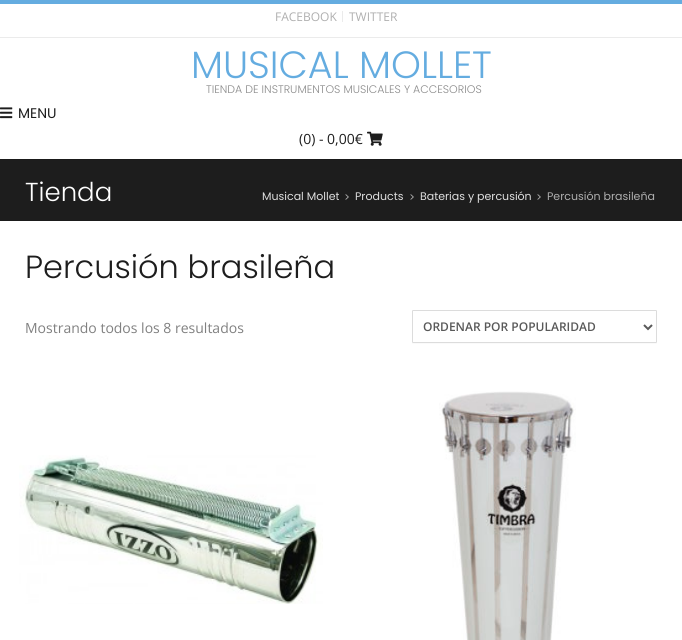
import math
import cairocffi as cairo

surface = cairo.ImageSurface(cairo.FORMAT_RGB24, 682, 640)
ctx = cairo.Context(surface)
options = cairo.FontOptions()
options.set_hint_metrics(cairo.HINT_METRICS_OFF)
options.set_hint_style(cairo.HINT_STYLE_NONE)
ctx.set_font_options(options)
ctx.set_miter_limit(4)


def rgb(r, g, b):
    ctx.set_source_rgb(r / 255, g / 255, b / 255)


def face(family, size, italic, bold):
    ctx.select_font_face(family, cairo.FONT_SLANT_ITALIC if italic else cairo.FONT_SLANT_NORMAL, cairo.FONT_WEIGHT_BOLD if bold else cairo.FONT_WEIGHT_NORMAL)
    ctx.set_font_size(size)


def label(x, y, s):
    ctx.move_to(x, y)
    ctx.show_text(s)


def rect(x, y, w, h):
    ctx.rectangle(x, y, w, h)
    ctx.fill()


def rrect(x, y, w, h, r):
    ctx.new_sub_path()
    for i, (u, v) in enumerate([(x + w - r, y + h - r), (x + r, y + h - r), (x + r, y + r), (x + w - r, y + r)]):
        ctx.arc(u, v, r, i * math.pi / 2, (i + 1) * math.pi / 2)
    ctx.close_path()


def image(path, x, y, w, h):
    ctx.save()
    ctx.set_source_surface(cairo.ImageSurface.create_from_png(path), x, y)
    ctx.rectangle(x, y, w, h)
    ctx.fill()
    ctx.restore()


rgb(255, 255, 255)
ctx.paint()
rgb(26, 26, 26)
rect(0, 159, 682, 1)
rgb(100, 172, 224)
rect(0, 0, 682, 4)
rgb(235, 235, 235)
rect(0, 37, 682, 1)
rect(342, 11, 1, 11)
face('Open Sans', 12, 0, 0)
rgb(175, 175, 175)
label(275, 21, 'FACEBOOK')
label(349, 21, 'TWITTER')
face('Poppins Light', 38, 0, 0)
rgb(100, 172, 224)
label(191, 78, 'MUSICAL MOLLET')
face('Poppins Light', 11, 0, 0)
rgb(138, 138, 138)
label(206, 93, 'TIENDA DE INSTRUMENTOS MUSICALES Y ACCESORIOS')
image('image0.png', 0, 107, 13, 12)
face('Poppins', 14, 0, 0)
rgb(29, 29, 29)
label(18, 118, 'MENU')
face('Open Sans', 14, 0, 0)
label(299, 144, '(0) - 0,00€')
image('image1.png', 367, 131, 16, 15)
rect(0, 160, 682, 60)
rgb(27, 27, 27)
rect(0, 220, 682, 1)
face('Poppins Light', 26, 0, 0)
rgb(255, 255, 255)
label(25, 201, 'Tienda')
face('Poppins', 11, 0, 0)
rgb(223, 223, 223)
label(262, 200, 'Musical Mollet')
rgb(175, 175, 175)
label(344, 201, '>')
rgb(223, 223, 223)
label(355, 200, 'Products')
rgb(175, 175, 175)
label(409, 201, '>')
rgb(223, 223, 223)
label(420, 200, 'Baterias y percusión')
rgb(175, 175, 175)
label(536, 201, '>')
label(547, 200, 'Percusión brasileña')
face('Poppins Light', 32, 0, 0)
rgb(29, 29, 29)
label(25, 278, 'Percusión brasileña')
face('Open Sans', 14, 0, 0)
rgb(128, 128, 128)
label(25, 333, 'Mostrando todos los 8 resultados')
rgb(250, 250, 250)
ctx.new_path()
ctx.move_to(412, 342)
ctx.curve_to(412, 343, 412, 344, 413, 344)
ctx.line_to(656, 344)
ctx.curve_to(657, 344, 657, 343, 657, 342)
ctx.line_to(656, 343)
ctx.line_to(413, 343)
ctx.close_path()
ctx.fill()
rrect(412.5, 310.5, 244, 32, 0.5)
rgb(220, 220, 220)
ctx.set_line_width(1)
ctx.stroke()
ctx.new_path()
ctx.move_to(644, 325)
ctx.line_to(648, 329)
ctx.line_to(652, 325)
rgb(89, 89, 89)
ctx.set_line_width(2)
ctx.stroke()
face('Open Sans SemiBold', 12, 0, 0)
label(423, 331, 'ORDENAR POR POPULARIDAD')
image('image2.png', 19, 455, 304, 149)
image('image3.png', 439, 391, 137, 249)
surface.write_to_png('render.png')
